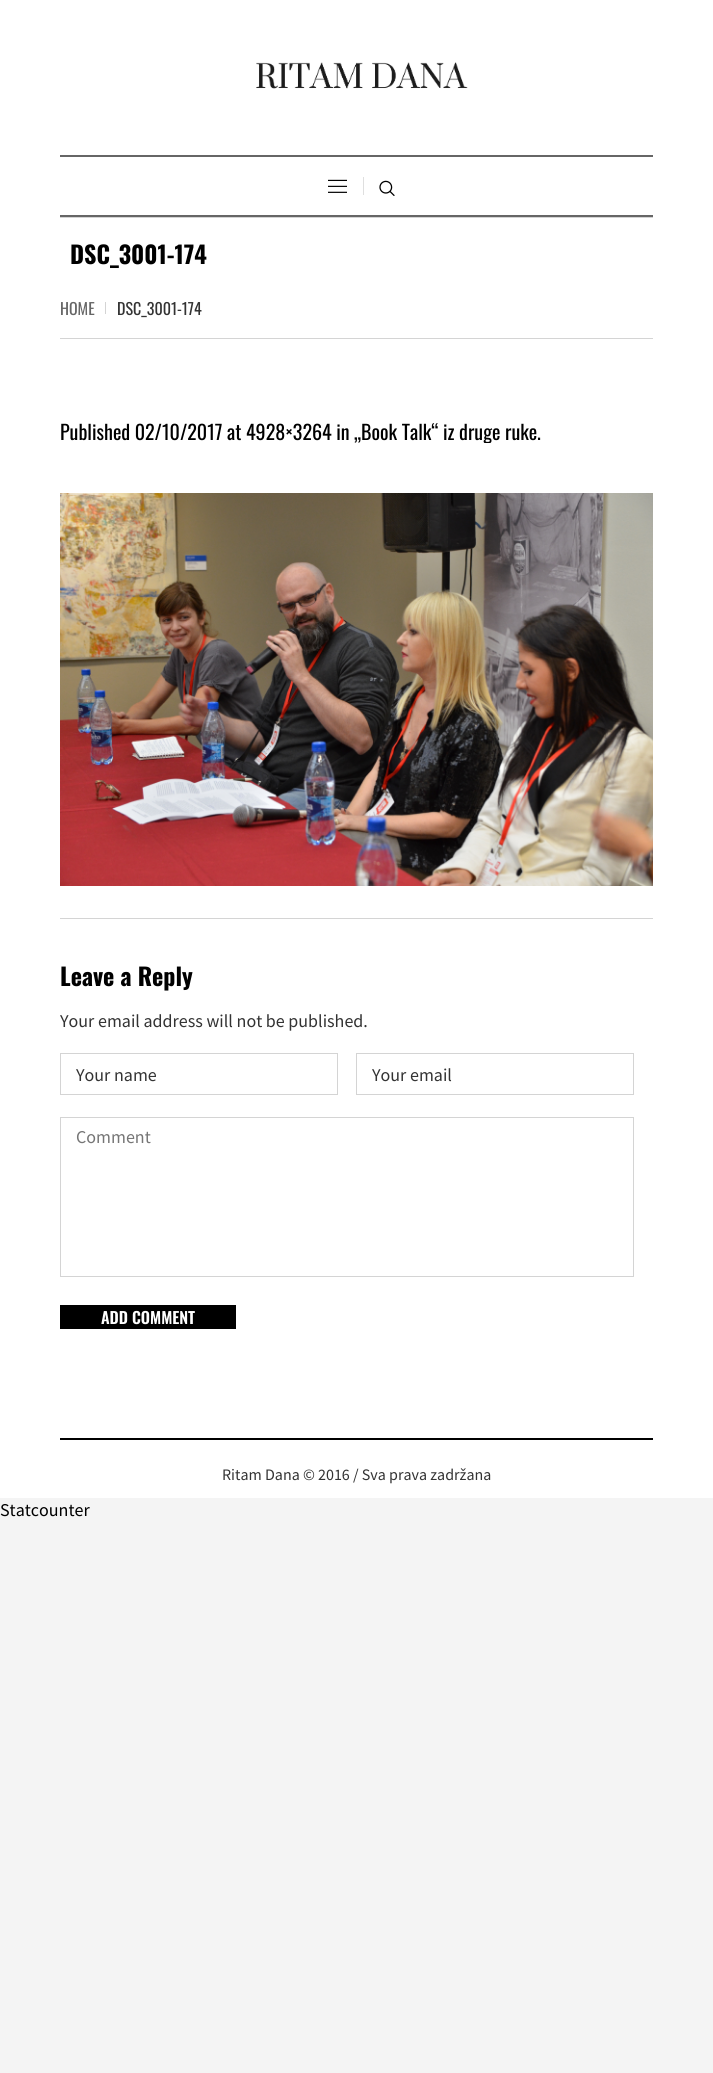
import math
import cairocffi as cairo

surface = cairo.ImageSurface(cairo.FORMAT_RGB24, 713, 2073)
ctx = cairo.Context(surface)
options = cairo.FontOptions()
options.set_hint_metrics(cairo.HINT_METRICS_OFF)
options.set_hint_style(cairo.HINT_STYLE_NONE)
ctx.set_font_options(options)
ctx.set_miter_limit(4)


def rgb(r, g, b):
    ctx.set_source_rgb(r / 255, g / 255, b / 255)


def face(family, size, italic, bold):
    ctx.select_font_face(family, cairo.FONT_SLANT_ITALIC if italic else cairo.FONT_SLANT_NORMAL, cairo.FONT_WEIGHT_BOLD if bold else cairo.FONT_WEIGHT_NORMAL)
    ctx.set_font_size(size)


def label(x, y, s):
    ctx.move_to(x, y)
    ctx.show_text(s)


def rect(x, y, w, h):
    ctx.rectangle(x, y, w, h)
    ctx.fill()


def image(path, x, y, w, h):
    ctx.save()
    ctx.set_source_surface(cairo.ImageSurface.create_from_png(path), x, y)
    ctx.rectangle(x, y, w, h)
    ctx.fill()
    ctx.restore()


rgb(244, 244, 244)
ctx.paint()
rgb(255, 255, 255)
rect(0, 0, 713, 217)
image('image0.png', 256, 62, 212, 27)
rgb(102, 102, 102)
rect(60, 155, 593, 2)
rect(60, 215, 593, 2)
image('image1.png', 328, 179, 19, 14)
rgb(223, 223, 223)
rect(363, 177, 1, 18)
image('image2.png', 379, 180, 16, 16)
rgb(255, 255, 255)
rect(0, 217, 713, 1281)
rgb(212, 212, 212)
rect(60, 217, 593, 1)
rect(60, 338, 593, 1)
face('Oswald', 24, 0, 1)
rgb(0, 0, 0)
label(70, 264, 'DSC_3001-174')
face('Oswald', 16, 0, 0)
rgb(102, 102, 102)
label(60, 315, 'HOME')
rgb(212, 212, 212)
rect(105, 302, 1, 12)
rgb(51, 51, 51)
label(117, 315, 'DSC_3001-174')
face('Oswald', 20, 0, 0)
rgb(0, 0, 0)
label(60, 440, 'Published 02/10/2017 at 4928×3264 in')
ctx.save()
ctx.rectangle(60, 419, 593, 24)
ctx.clip()
label(354, 440, '„Book Talk“ iz druge ruke')
ctx.restore()
label(537, 440, '.')
image('image3.png', 60, 493, 593, 393)
rgb(212, 212, 212)
rect(60, 918, 593, 1)
face('Oswald', 24, 0, 1)
rgb(0, 0, 0)
label(60, 986, 'Leave a Reply')
face('Source Sans Pro', 18, 0, 0)
rgb(51, 51, 51)
label(60, 1027, 'Your email address will not be published.')
ctx.rectangle(60.5, 1053.5, 277, 41)
rgb(212, 212, 212)
ctx.set_line_width(1)
ctx.stroke()
rgb(51, 51, 51)
label(76, 1081, 'Your name')
ctx.rectangle(356.5, 1053.5, 277, 41)
rgb(212, 212, 212)
ctx.stroke()
rgb(51, 51, 51)
label(372, 1081, 'Your email')
ctx.rectangle(60.5, 1117.5, 573, 159)
rgb(212, 212, 212)
ctx.stroke()
rgb(117, 117, 117)
label(76, 1143, 'Comment')
rgb(0, 0, 0)
rect(60, 1305, 176, 24)
face('Oswald SemiBold', 16, 0, 0)
rgb(255, 255, 255)
label(101, 1324, 'ADD COMMENT')
rgb(0, 0, 0)
rect(60, 1438, 593, 2)
face('Source Sans Pro', 16, 0, 0)
rgb(51, 51, 51)
label(222, 1480, 'Ritam Dana © 2016 / Sva prava zadržana')
face('Source Sans Pro', 18, 0, 0)
rgb(0, 0, 0)
label(0, 1516, 'Statcounter')
surface.write_to_png('render.png')
